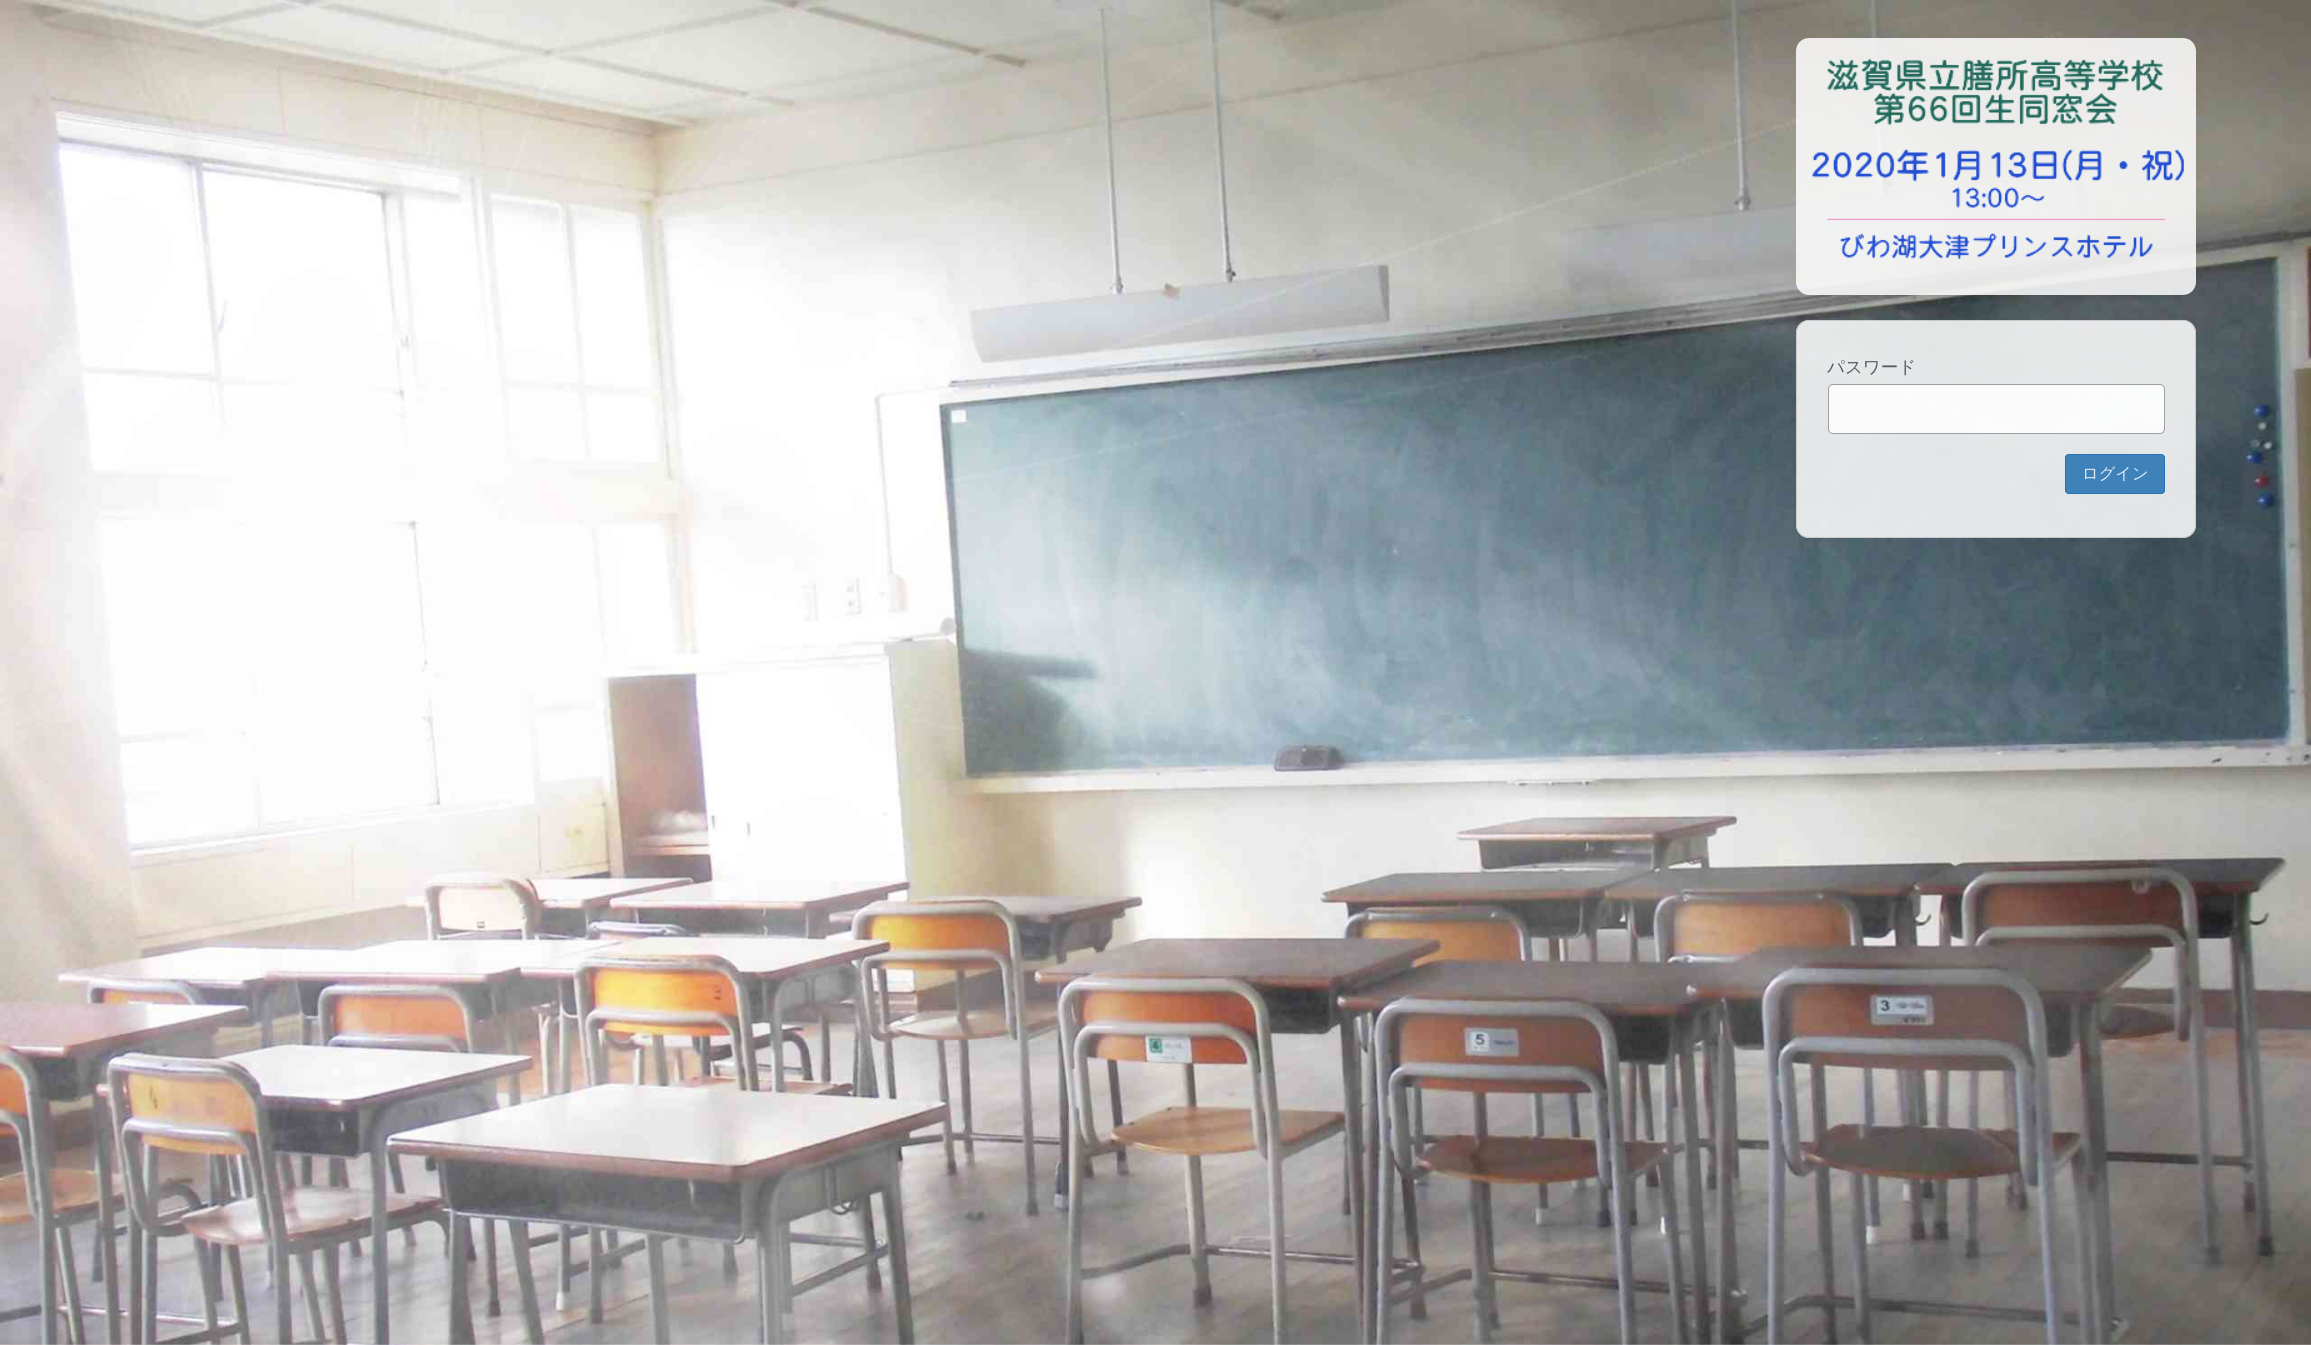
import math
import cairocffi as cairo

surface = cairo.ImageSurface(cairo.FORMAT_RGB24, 2311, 1345)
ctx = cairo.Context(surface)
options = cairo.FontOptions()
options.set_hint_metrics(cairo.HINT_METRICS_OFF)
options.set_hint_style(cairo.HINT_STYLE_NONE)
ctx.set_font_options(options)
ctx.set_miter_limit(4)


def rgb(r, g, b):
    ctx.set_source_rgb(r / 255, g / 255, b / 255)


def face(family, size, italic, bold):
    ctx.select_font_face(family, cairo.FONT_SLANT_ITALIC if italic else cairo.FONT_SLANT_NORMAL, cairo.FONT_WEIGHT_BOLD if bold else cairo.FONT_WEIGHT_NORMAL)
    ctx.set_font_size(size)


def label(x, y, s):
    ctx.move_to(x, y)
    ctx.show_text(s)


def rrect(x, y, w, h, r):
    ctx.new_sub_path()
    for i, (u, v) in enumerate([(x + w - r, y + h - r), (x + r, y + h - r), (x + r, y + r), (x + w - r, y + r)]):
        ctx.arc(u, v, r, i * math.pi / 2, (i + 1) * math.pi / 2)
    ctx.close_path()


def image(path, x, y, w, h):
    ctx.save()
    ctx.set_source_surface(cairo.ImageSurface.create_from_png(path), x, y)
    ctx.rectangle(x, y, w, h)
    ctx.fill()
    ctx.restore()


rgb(255, 255, 255)
ctx.paint()
image('image0.png', 0, 0, 2311, 1345)
ctx.set_source_rgba(1, 1, 1, 0.85)
rrect(1796, 38, 400, 257, 13)
ctx.fill()
image('image1.png', 1812, 58, 372, 201)
rrect(1796, 320, 400, 218, 13)
ctx.fill()
rrect(1796.5, 320.5, 399, 217, 12.5)
ctx.set_source_rgba(0.765, 0.769, 0.78, 0.85)
ctx.set_line_width(1)
ctx.stroke()
face('WenQuanYi Zen Hei Medium', 17.5, 0, 0)
rgb(85, 92, 98)
label(1827, 373, 'パスワード')
ctx.set_source_rgba(1, 1, 1, 0.85)
rrect(1828, 384, 337, 50, 5)
ctx.fill()
rrect(1828.5, 384.5, 336, 49, 4.5)
ctx.set_source_rgba(0.549, 0.561, 0.58, 0.85)
ctx.stroke()
ctx.set_source_rgba(0.133, 0.443, 0.694, 0.85)
rrect(2065, 454, 100, 40, 4)
ctx.fill()
rrect(2065.5, 454.5, 99, 39, 3.5)
ctx.stroke()
face('WenQuanYi Zen Hei Medium', 16.25, 0, 0)
rgb(226, 236, 245)
label(2082, 479, 'ログイン')
surface.write_to_png('render.png')
